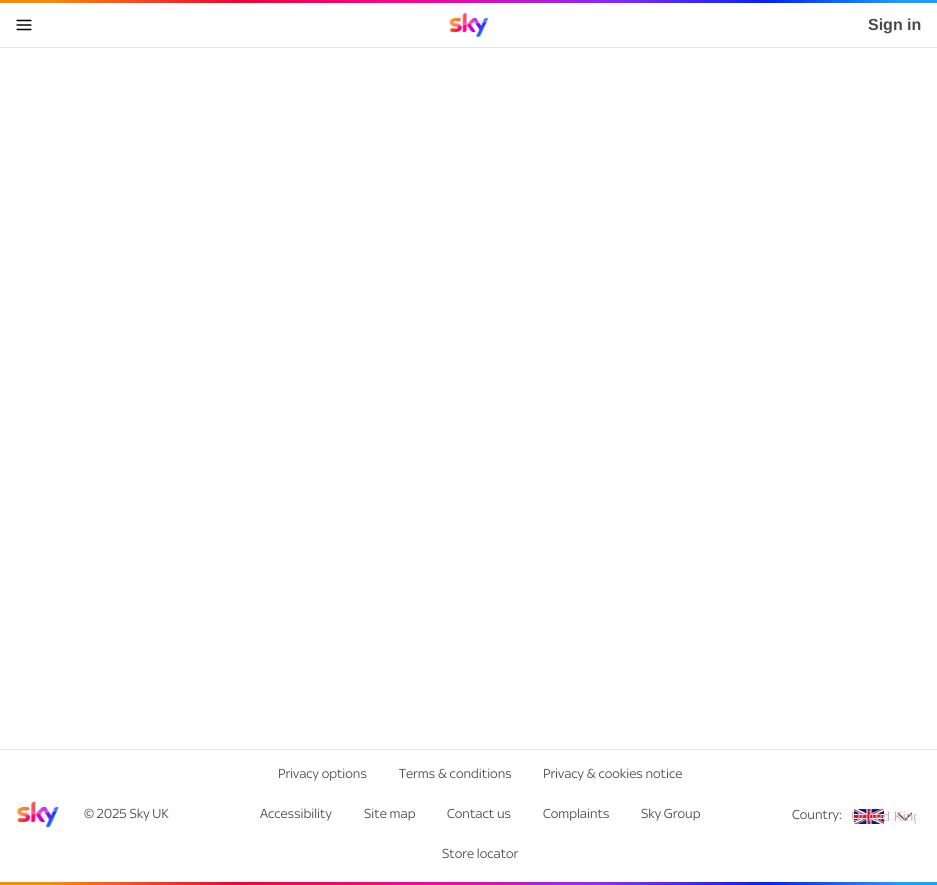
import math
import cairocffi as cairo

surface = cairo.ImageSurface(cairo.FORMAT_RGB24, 937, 885)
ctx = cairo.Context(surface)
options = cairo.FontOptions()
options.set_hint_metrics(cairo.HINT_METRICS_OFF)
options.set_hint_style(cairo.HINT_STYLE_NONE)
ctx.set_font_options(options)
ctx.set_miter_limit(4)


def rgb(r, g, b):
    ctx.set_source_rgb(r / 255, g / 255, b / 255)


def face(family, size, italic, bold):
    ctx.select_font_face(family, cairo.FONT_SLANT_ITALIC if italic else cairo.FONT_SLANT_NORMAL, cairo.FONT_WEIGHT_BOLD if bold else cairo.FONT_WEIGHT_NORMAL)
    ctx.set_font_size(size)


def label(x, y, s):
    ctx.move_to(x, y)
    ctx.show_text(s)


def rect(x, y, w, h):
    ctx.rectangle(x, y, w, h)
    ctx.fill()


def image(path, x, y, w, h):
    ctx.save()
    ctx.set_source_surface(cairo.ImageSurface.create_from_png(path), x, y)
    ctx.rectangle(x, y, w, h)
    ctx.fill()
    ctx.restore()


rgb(255, 255, 255)
ctx.paint()
rgb(230, 230, 230)
rect(0, 47, 937, 1)
gradient = cairo.LinearGradient(0, 1.5, 937, 1.5)
gradient.add_color_stop_rgba(0.05, 1, 0.549, 0, 1)
gradient.add_color_stop_rgba(0.25, 0.973, 0, 0.196, 1)
gradient.add_color_stop_rgba(0.45, 1, 0, 0.627, 1)
gradient.add_color_stop_rgba(0.65, 0.549, 0.157, 1, 1)
gradient.add_color_stop_rgba(0.82, 0, 0.137, 1, 1)
gradient.add_color_stop_rgba(0.96, 0.098, 0.627, 1, 1)
ctx.set_source(gradient)
rect(0, 0, 937, 3)
image('image0.png', 16, 19, 16, 12)
image('image1.png', 449, 13, 40, 24)
face('Liberation Sans', 16, 0, 1)
rgb(74, 74, 74)
label(868, 30, 'Sign in')
rgb(230, 230, 230)
rect(0, 749, 937, 1)
image('image2.png', 17, 801, 42, 27)
face('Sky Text', 14, 0, 0)
rgb(74, 74, 74)
label(84, 818, '© 2025 Sky UK')
label(278, 778, 'Privacy options')
label(399, 778, 'Terms & conditions')
label(543, 778, 'Privacy & cookies notice')
label(260, 818, 'Accessibility')
label(364, 818, 'Site map')
label(447, 818, 'Contact us')
label(543, 818, 'Complaints')
label(641, 818, 'Sky Group')
label(442, 858, 'Store locator')
label(792, 819, 'Country:')
image('image3.png', 854, 809, 30, 15)
image('image4.png', 897, 812, 16, 9)
ctx.save()
ctx.rectangle(851, 809, 65, 15)
ctx.clip()
face('Liberation Sans', 13.5, 0, 0)
rgb(218, 171, 183)
label(851, 821, 'United King')
ctx.restore()
gradient = cairo.LinearGradient(0, 884, 937, 884)
gradient.add_color_stop_rgba(0.05, 1, 0.549, 0, 1)
gradient.add_color_stop_rgba(0.25, 0.973, 0, 0.196, 1)
gradient.add_color_stop_rgba(0.45, 1, 0, 0.627, 1)
gradient.add_color_stop_rgba(0.65, 0.549, 0.157, 1, 1)
gradient.add_color_stop_rgba(0.82, 0, 0.137, 1, 1)
gradient.add_color_stop_rgba(0.96, 0.098, 0.627, 1, 1)
ctx.set_source(gradient)
rect(0, 882, 937, 3)
surface.write_to_png('render.png')
